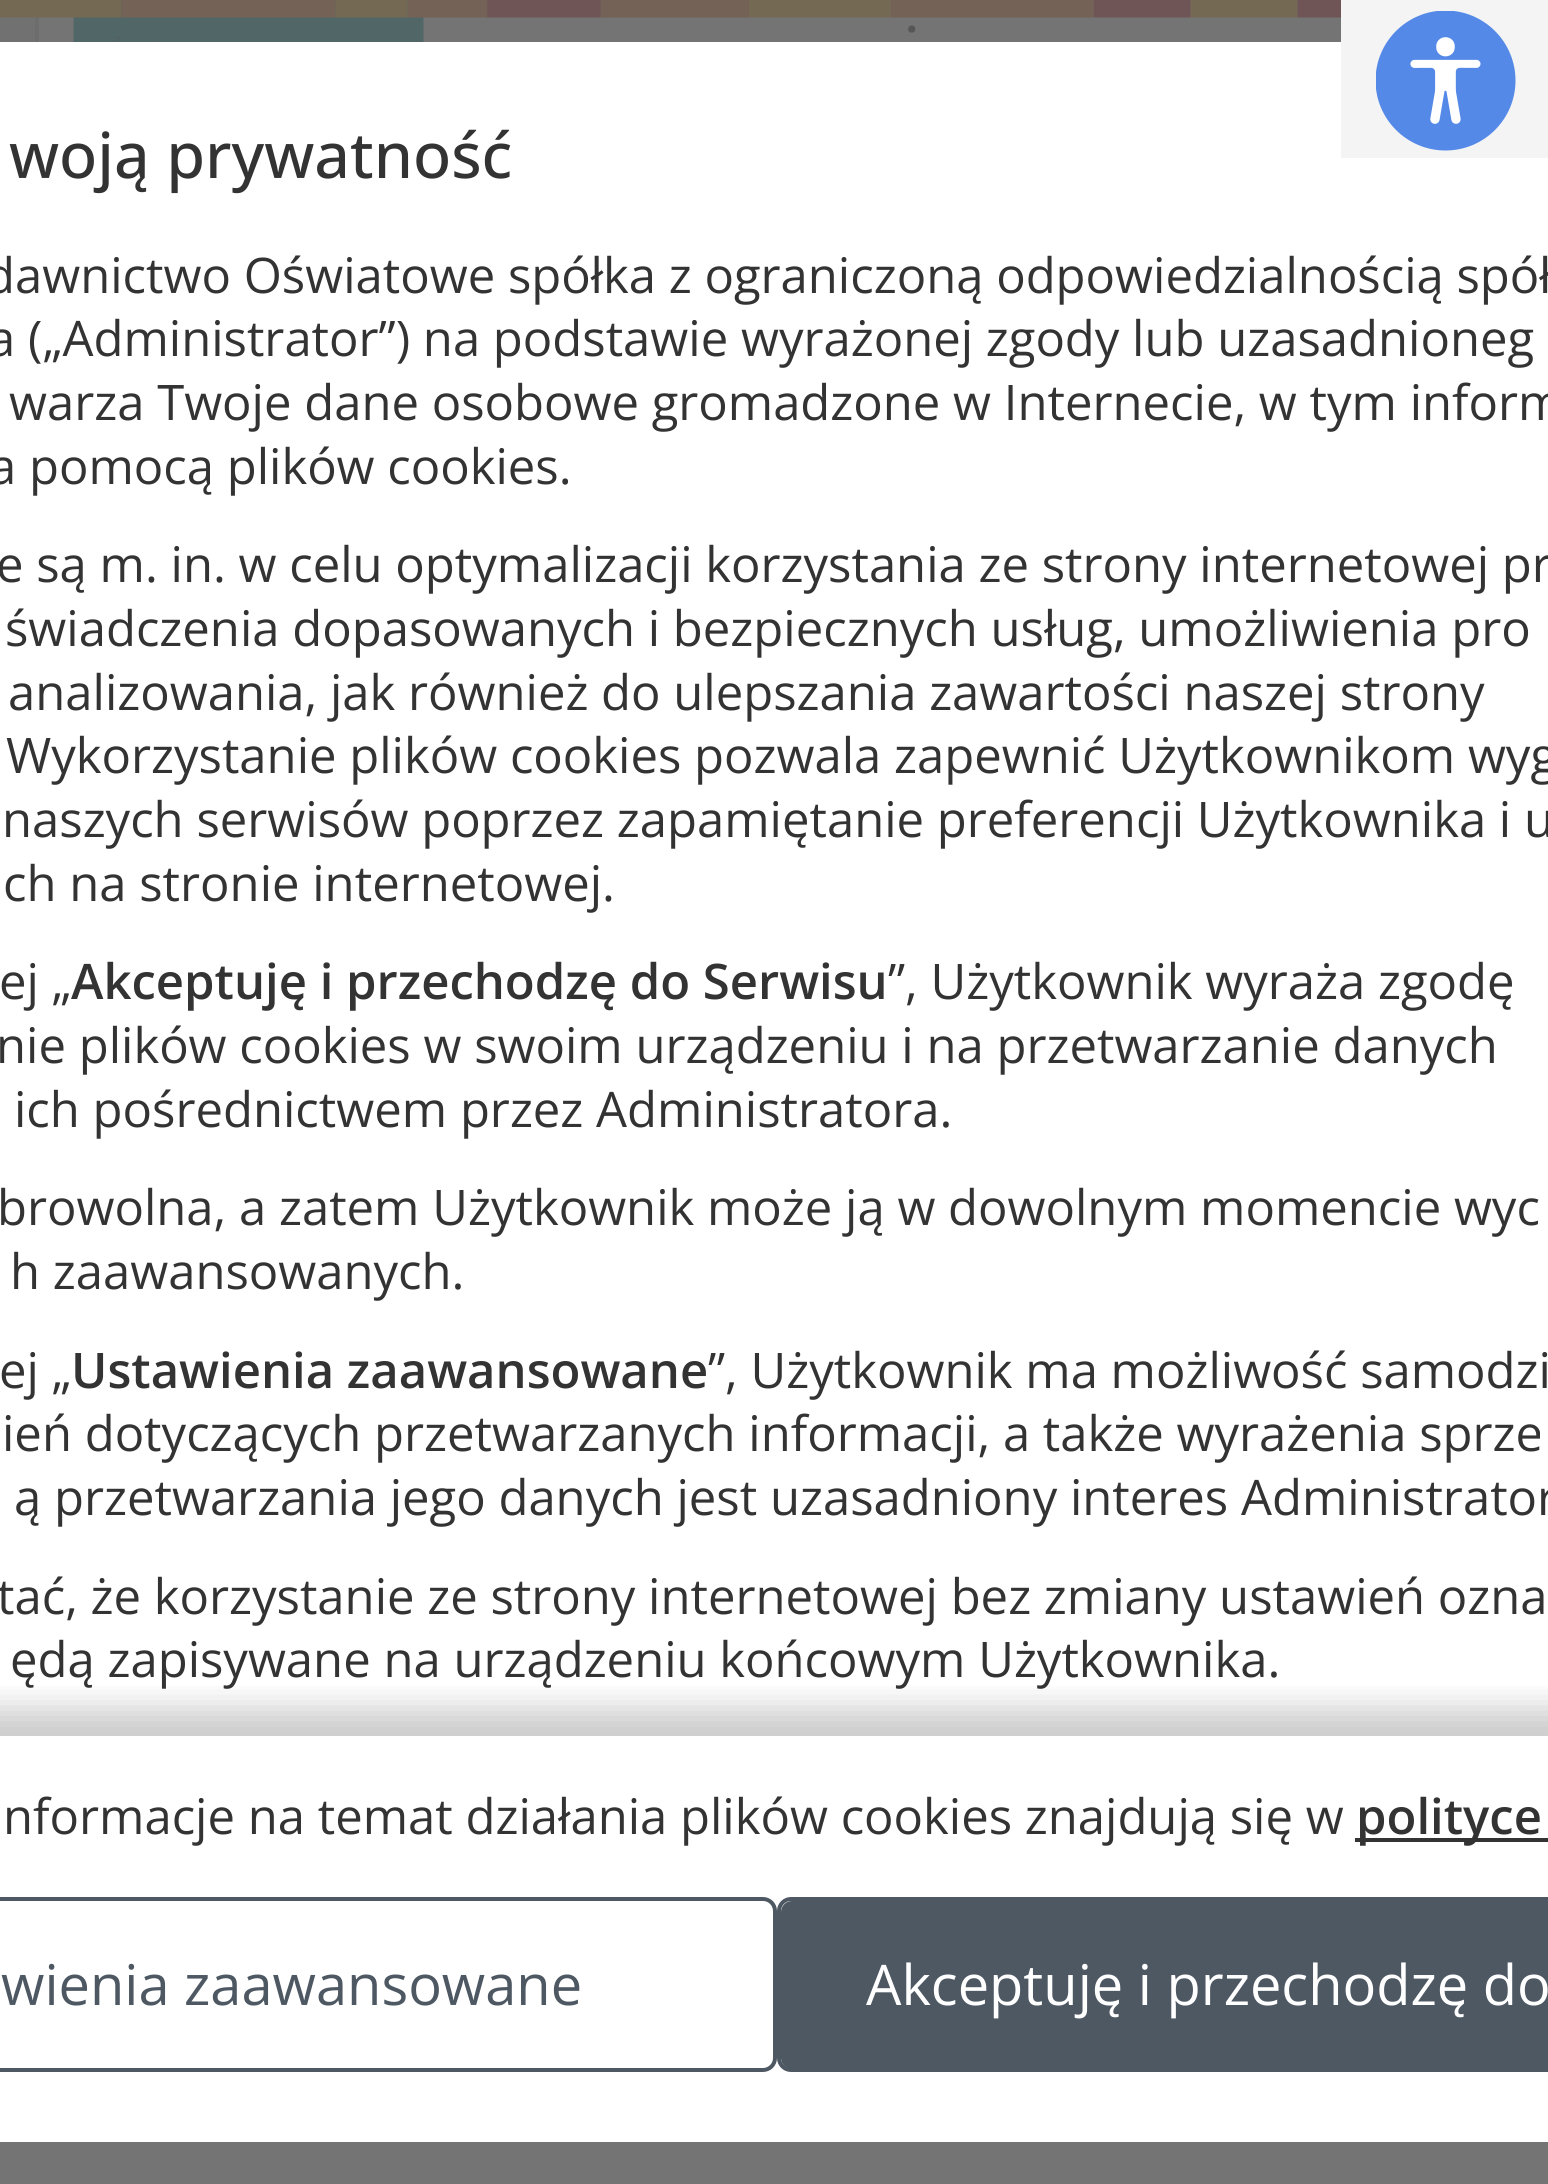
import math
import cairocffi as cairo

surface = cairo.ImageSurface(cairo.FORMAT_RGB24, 1548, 2184)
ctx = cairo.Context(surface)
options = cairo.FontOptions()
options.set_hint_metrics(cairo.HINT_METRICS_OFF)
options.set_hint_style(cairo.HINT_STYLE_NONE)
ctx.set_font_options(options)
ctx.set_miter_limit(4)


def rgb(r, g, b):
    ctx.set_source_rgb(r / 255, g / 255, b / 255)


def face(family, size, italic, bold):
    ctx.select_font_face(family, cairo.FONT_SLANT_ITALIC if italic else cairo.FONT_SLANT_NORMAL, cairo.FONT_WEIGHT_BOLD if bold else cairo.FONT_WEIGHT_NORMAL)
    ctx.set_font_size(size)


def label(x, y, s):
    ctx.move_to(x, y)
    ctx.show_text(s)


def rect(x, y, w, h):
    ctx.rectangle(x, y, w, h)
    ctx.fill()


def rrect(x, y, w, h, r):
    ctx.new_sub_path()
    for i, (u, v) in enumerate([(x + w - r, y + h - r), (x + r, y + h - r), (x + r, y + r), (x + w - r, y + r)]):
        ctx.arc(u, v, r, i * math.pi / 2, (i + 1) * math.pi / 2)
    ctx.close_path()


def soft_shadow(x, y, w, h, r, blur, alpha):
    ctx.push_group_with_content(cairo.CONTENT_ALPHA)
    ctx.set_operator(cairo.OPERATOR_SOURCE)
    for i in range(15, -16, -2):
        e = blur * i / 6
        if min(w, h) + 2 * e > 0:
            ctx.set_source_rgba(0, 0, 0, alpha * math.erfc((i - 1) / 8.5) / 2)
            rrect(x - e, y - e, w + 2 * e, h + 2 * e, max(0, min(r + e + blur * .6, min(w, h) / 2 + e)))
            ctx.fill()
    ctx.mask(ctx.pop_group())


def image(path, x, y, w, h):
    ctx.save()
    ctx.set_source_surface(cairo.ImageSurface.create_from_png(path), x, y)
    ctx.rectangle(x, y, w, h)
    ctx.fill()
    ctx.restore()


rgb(113, 113, 113)
ctx.paint()
rgb(116, 116, 116)
rect(39, 0, 1302, 42)
ctx.rectangle(37, -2, 1477, 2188)
rgb(109, 109, 109)
ctx.set_line_width(4)
ctx.stroke()
image('image2.png', 73, 0, 351, 42)
image('image0.png', 0, 0, 1341, 18)
rgb(255, 255, 255)
rect(0, 42, 1548, 2100)
rgb(244, 244, 244)
rect(1341, 0, 207, 158)
image('image1.png', 1376, 11, 140, 140)
face('Open Sans SemiBold', 49, 0, 0)
rgb(86, 86, 86)
label(905, 32, '.')
face('Open Sans Medium', 63, 0, 0)
rgb(51, 51, 51)
label(9, 178, 'woją prywatność')
face('Open Sans', 49, 0, 0)
label(-15, 293, 'dawnictwo Oświatowe spółka z ograniczoną odpowiedzialnością spół')
label(-12, 356, 'a („Administrator”) na podstawie wyrażonej zgody lub uzasadnioneg')
label(9, 420, 'warza Twoje dane osobowe gromadzone w Internecie, w tym inform')
label(-11, 484, 'a pomocą plików cookies.')
label(-4, 582, 'e są m. in. w celu optymalizacji korzystania ze strony internetowej pr')
label(5, 646, 'świadczenia dopasowanych i bezpiecznych usług, umożliwienia pro')
label(8, 710, 'analizowania, jak również do ulepszania zawartości naszej strony')
label(6, 773, 'Wykorzystanie plików cookies pozwala zapewnić Użytkownikom wyg')
label(2, 837, 'naszych serwisów poprzez zapamiętanie preferencji Użytkownika i u')
label(3, 901, 'ch na stronie internetowej.')
label(-1, 999, 'ej „')
face('Open Sans SemiBold', 49, 0, 0)
label(71, 999, 'Akceptuję i przechodzę do Serwisu')
face('Open Sans', 49, 0, 0)
label(888, 999, '”, Użytkownik wyraża zgodę')
label(-4, 1063, 'nie plików cookies w swoim urządzeniu i na przetwarzanie danych')
label(14, 1127, 'ich pośrednictwem przez Administratora.')
label(-3, 1225, 'browolna, a zatem Użytkownik może ją w dowolnym momencie wyc')
label(10, 1289, 'h zaawansowanych.')
label(-1, 1388, 'ej „')
face('Open Sans SemiBold', 49, 0, 0)
label(71, 1388, 'Ustawienia zaawansowane')
face('Open Sans', 49, 0, 0)
label(708, 1388, '”, Użytkownik ma możliwość samodzi')
label(2, 1451, 'ień dotyczących przetwarzanych informacji, a także wyrażenia sprze')
label(14, 1515, 'ą przetwarzania jego danych jest uzasadniony interes Administrator')
label(-3, 1614, 'tać, że korzystanie ze strony internetowej bez zmiany ustawień ozna')
label(10, 1677, 'ędą zapisywane na urządzeniu końcowym Użytkownika.')
rgb(116, 116, 116)
rect(0, 2142, 1548, 42)
ctx.save()
ctx.rectangle(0, 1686, 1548, 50)
ctx.clip()
rgb(50, 50, 50)
soft_shadow(-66, 1708, 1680, 406, 18, 16, 0.25)
ctx.restore()
rgb(51, 51, 51)
label(3, 1834, 'nformacje na temat działania plików cookies znajdują się w')
rect(1355, 1838, 193, 4)
face('Open Sans SemiBold', 49, 0, 0)
label(1356, 1834, 'polityce')
rrect(-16, 1899, 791, 171, 12)
rgb(77, 88, 99)
ctx.stroke()
face('Open Sans', 56, 0, 0)
label(1, 2005, 'wienia zaawansowane')
rrect(781, 1901, 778, 168, 11)
ctx.fill()
rrect(779, 1899, 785, 171, 12)
ctx.stroke()
rgb(255, 255, 255)
label(866, 2005, 'Akceptuję i przechodzę do')
surface.write_to_png('render.png')
